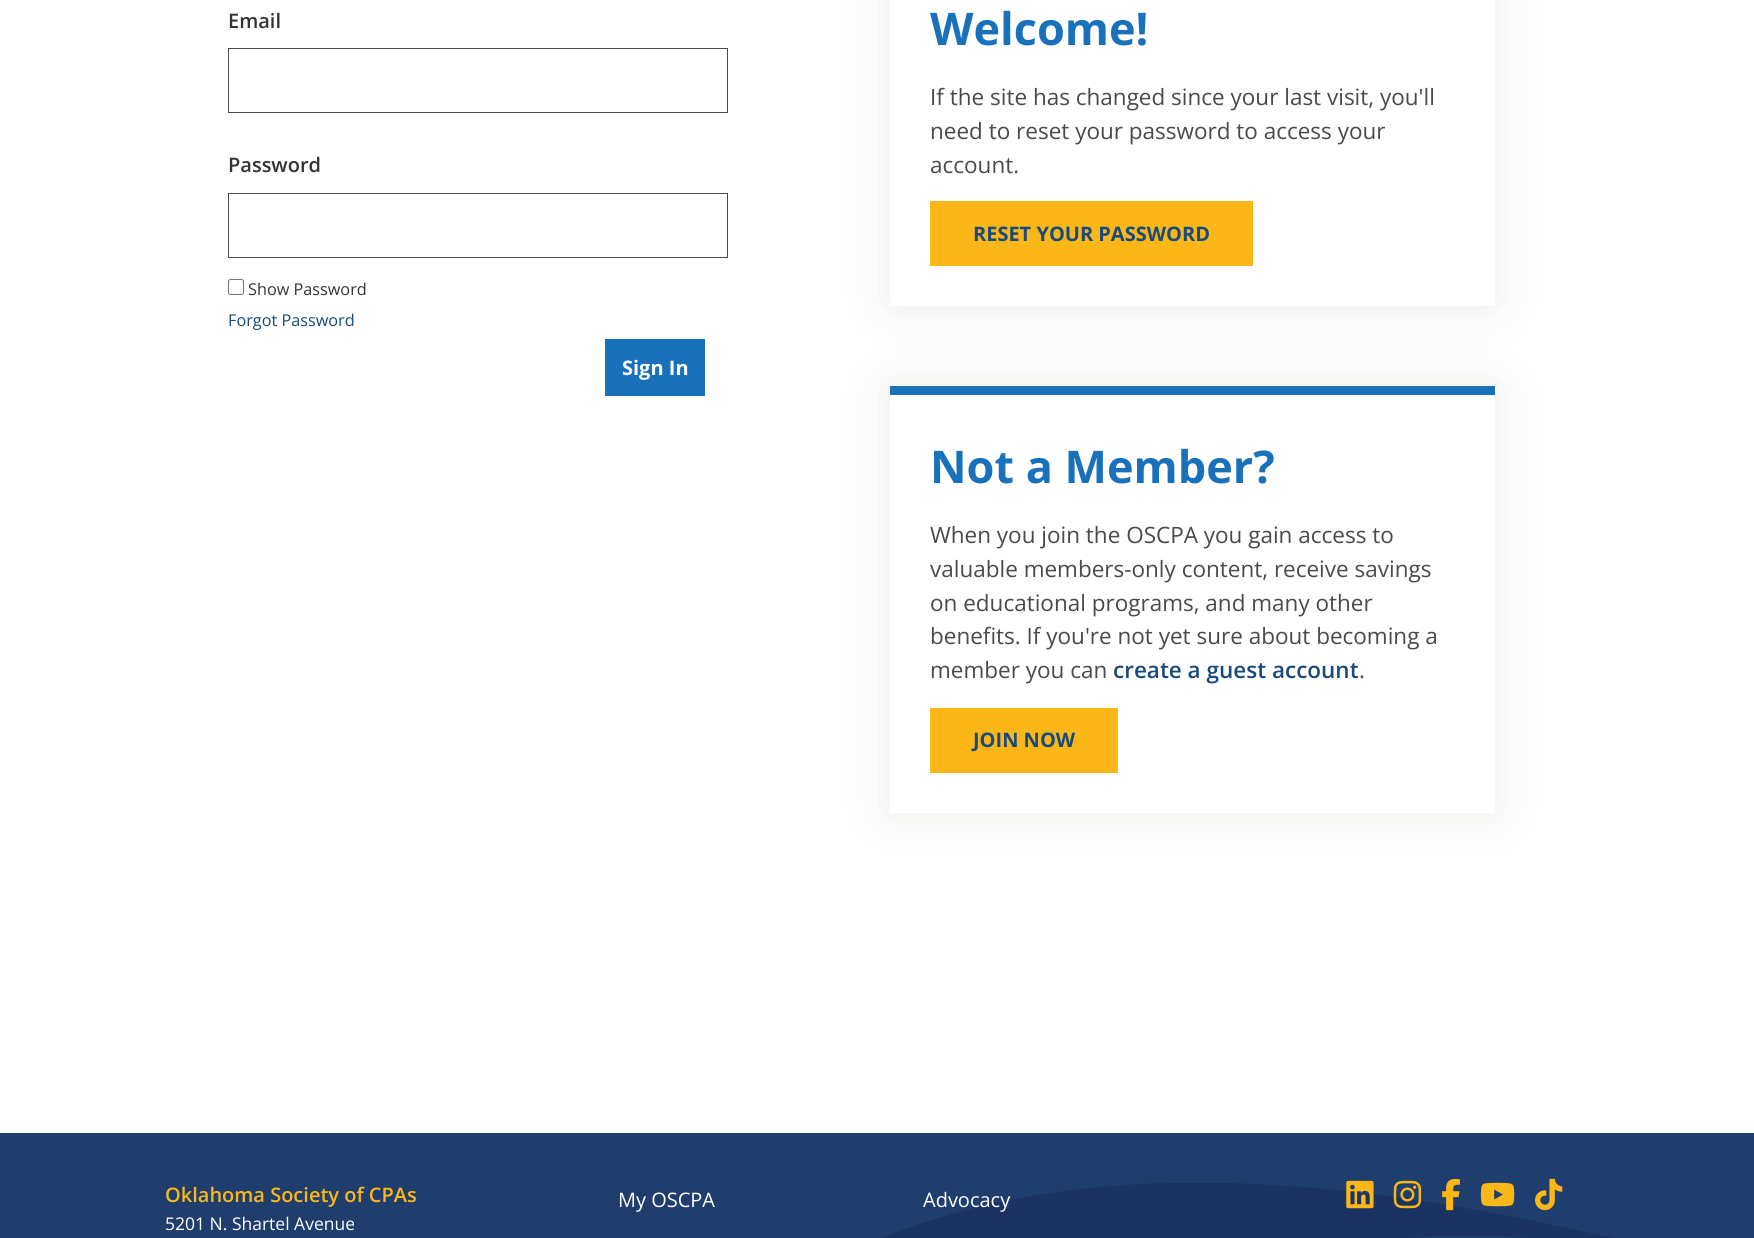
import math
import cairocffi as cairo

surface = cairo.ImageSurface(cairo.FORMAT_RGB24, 1754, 1238)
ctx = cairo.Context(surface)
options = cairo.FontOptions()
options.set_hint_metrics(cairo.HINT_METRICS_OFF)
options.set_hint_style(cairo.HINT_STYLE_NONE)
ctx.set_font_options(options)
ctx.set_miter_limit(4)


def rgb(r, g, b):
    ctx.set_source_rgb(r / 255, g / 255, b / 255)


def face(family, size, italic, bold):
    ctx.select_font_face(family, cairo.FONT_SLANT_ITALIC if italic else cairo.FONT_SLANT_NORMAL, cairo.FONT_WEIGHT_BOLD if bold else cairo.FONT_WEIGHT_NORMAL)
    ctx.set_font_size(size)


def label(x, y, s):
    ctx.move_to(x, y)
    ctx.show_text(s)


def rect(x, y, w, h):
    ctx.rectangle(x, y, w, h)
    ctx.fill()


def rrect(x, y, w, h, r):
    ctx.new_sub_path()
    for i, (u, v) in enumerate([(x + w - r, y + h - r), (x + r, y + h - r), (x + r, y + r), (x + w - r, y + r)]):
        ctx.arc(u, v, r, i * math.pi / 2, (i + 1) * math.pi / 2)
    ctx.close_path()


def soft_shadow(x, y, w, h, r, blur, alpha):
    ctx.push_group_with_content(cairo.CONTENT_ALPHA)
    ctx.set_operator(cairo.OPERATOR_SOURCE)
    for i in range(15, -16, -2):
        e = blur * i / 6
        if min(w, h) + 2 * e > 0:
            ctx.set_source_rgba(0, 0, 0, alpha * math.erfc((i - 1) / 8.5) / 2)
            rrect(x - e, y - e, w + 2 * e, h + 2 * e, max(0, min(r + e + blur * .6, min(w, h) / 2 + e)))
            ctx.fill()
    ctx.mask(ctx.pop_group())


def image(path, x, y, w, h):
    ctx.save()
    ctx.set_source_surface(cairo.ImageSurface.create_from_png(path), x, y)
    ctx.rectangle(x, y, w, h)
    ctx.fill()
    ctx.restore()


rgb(255, 255, 255)
ctx.paint()
face('Open Sans SemiBold', 20, 0, 0)
rgb(51, 51, 51)
label(228, 28, 'Email')
ctx.rectangle(228.5, 48.5, 499, 64)
rgb(74, 74, 74)
ctx.set_line_width(1)
ctx.stroke()
rgb(51, 51, 51)
label(228, 172, 'Password')
ctx.rectangle(228.5, 193.5, 499, 64)
rgb(74, 74, 74)
ctx.stroke()
rrect(228.5, 279.5, 15, 15, 2)
rgb(118, 118, 118)
ctx.stroke()
face('Open Sans', 16.25, 0, 0)
rgb(51, 51, 51)
label(248, 295, 'Show Password')
rgb(24, 74, 125)
label(228, 326, 'Forgot Password')
rgb(24, 113, 186)
rect(605, 339, 100, 57)
face('Open Sans', 20, 0, 1)
rgb(255, 255, 255)
label(622, 375, 'Sign In')
ctx.save()
ctx.set_fill_rule(cairo.FILL_RULE_EVEN_ODD)
ctx.new_path()
ctx.move_to(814, 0)
ctx.line_to(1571, 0)
ctx.line_to(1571, 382)
ctx.line_to(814, 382)
ctx.close_path()
ctx.move_to(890, -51)
ctx.line_to(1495, -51)
ctx.line_to(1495, 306)
ctx.line_to(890, 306)
ctx.close_path()
ctx.clip()
rgb(219, 220, 214)
soft_shadow(890, -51, 605, 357, 0, 25, 0.5)
ctx.restore()
face('Open Sans', 45, 0, 1)
rgb(24, 113, 186)
label(930, 45, 'Welcome!')
face('Open Sans', 22.5, 0, 0)
rgb(74, 74, 74)
label(930, 105, 'If the site has changed since your last visit, you\'ll')
label(930, 139, 'need to reset your password to access your')
label(930, 173, 'account.')
rgb(251, 183, 23)
rect(930, 201, 323, 65)
face('Open Sans', 20, 0, 1)
rgb(24, 74, 125)
label(973, 241, 'RESET YOUR PASSWORD')
ctx.save()
ctx.set_fill_rule(cairo.FILL_RULE_EVEN_ODD)
ctx.new_path()
ctx.move_to(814, 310)
ctx.line_to(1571, 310)
ctx.line_to(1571, 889)
ctx.line_to(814, 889)
ctx.close_path()
ctx.move_to(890, 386)
ctx.line_to(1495, 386)
ctx.line_to(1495, 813)
ctx.line_to(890, 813)
ctx.close_path()
ctx.clip()
rgb(219, 220, 214)
soft_shadow(890, 386, 605, 427, 0, 25, 0.5)
ctx.restore()
rgb(24, 113, 186)
rect(890, 386, 605, 9)
face('Open Sans', 45, 0, 1)
label(930, 483, 'Not a Member?')
face('Open Sans', 22.5, 0, 0)
rgb(74, 74, 74)
label(930, 543, 'When you join the OSCPA you gain access to')
label(930, 577, 'valuable members-only content, receive savings')
label(930, 611, 'on educational programs, and many other')
label(930, 644, 'benefits. If you\'re not yet sure about becoming a')
label(930, 678, 'member you can')
face('Open Sans SemiBold', 22.5, 0, 0)
rgb(24, 74, 125)
label(1113, 678, 'create a guest account')
face('Open Sans', 22.5, 0, 0)
rgb(74, 74, 74)
label(1359, 678, '.')
rgb(251, 183, 23)
rect(930, 708, 188, 65)
face('Open Sans', 20, 0, 1)
rgb(24, 74, 125)
label(973, 747, 'JOIN NOW')
rgb(32, 62, 109)
rect(0, 1133, 1754, 105)
face('Open Sans SemiBold', 20, 0, 0)
rgb(251, 183, 23)
label(165, 1202, 'Oklahoma Society of CPAs')
face('Open Sans', 17.5, 0, 0)
rgb(255, 255, 255)
label(165, 1230, '5201 N. Shartel Avenue')
face('Open Sans', 20, 0, 0)
label(618, 1207, 'My OSCPA')
ctx.save()
ctx.rectangle(703, 1183, 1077, 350)
ctx.clip()
rgb(26, 51, 99)
ctx.set_fill_rule(cairo.FILL_RULE_EVEN_ODD)
ctx.new_path()
ctx.move_to(702, 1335)
ctx.curve_to(923, 1184, 1181, 1105, 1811, 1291)
ctx.curve_to(1177, 1104, 1011, 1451, 1011, 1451)
ctx.curve_to(980, 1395, 856, 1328, 702, 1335)
ctx.close_path()
ctx.fill()
ctx.restore()
label(923, 1207, 'Advocacy')
image('image0.png', 1346, 1180, 28, 29)
image('image1.png', 1393, 1180, 29, 29)
image('image2.png', 1442, 1178, 18, 33)
image('image3.png', 1480, 1182, 35, 25)
image('image4.png', 1535, 1178, 28, 33)
surface.write_to_png('render.png')
